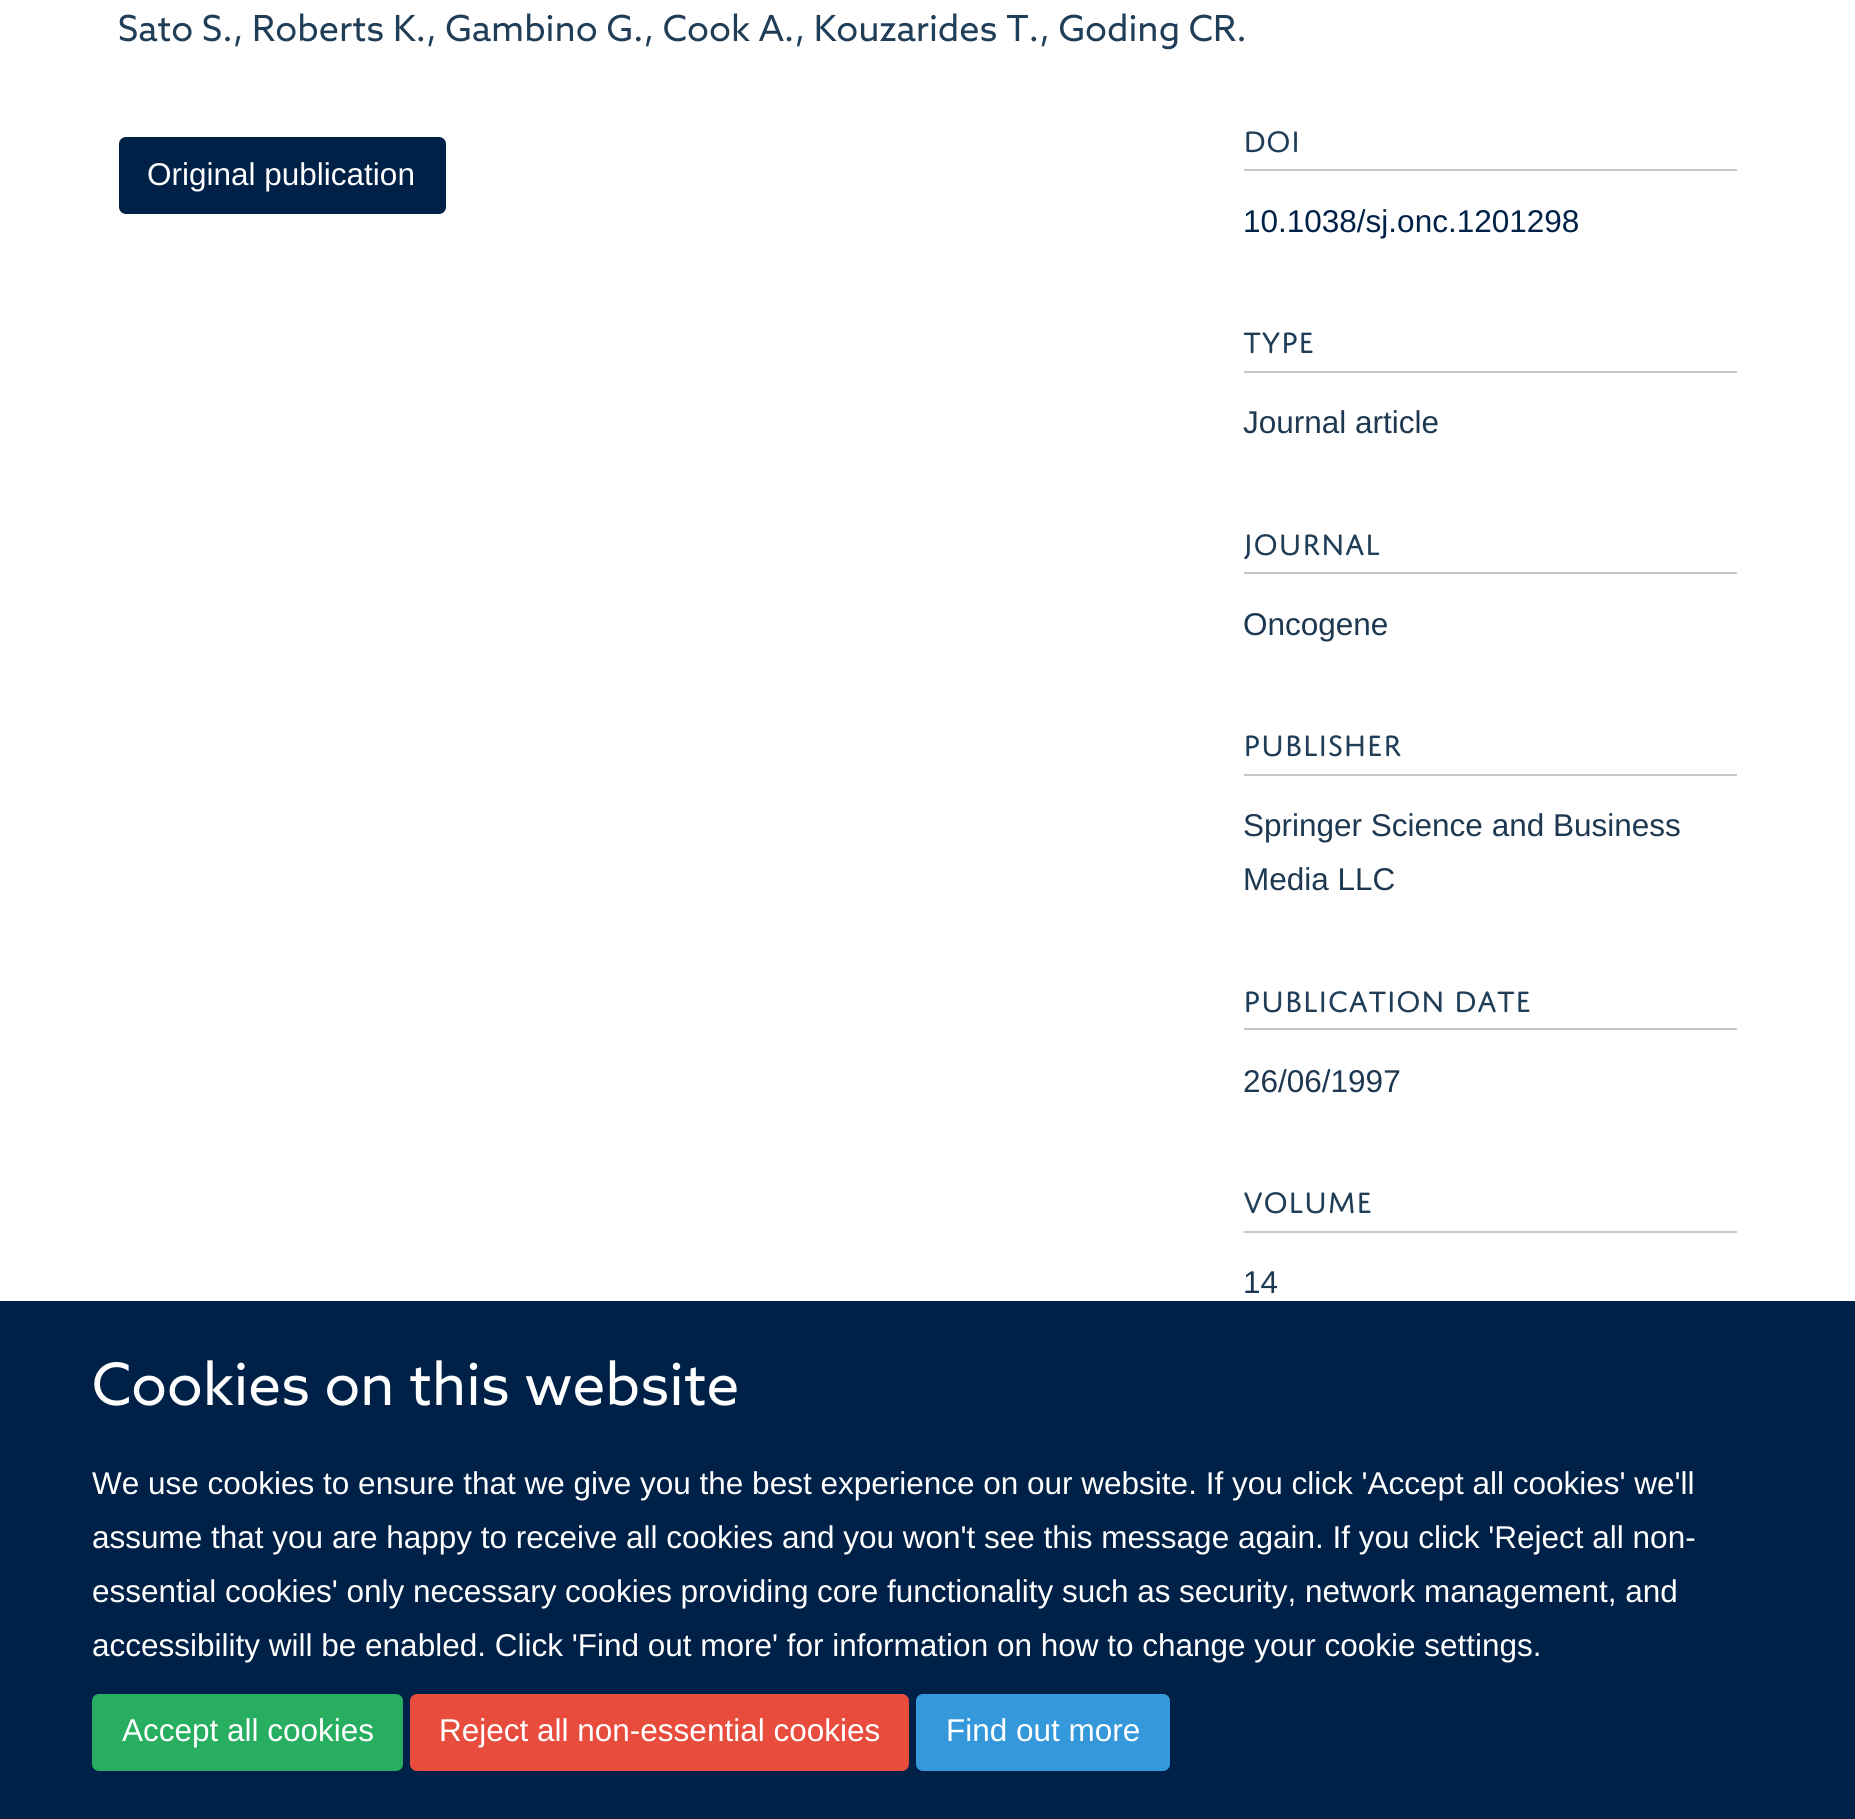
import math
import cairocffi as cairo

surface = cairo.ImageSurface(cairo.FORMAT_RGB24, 1855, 1819)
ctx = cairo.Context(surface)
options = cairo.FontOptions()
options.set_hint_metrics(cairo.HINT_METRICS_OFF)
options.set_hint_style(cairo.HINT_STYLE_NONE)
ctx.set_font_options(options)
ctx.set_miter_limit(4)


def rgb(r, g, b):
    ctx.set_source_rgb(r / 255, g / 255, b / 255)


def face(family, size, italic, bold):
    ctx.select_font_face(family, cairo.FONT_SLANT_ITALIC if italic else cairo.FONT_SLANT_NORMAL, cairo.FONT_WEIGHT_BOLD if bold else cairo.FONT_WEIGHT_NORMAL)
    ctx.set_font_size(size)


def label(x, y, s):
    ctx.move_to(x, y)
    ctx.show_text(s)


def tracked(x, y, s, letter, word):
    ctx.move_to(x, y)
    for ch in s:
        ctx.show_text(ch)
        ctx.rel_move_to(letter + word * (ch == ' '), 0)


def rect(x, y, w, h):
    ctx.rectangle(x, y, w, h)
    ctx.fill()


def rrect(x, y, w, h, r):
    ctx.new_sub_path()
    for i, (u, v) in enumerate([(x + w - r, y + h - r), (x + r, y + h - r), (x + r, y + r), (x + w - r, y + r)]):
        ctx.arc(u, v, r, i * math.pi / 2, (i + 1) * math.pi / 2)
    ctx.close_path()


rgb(255, 255, 255)
ctx.paint()
face('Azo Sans', 36, 0, 0)
rgb(32, 62, 88)
label(118, 41, 'Sato S., Roberts K., Gambino G., Cook A., Kouzarides T., Goding CR.')
rgb(0, 33, 71)
rrect(120, 138, 325, 75, 6)
ctx.fill_preserve()
ctx.stroke()
face('Liberation Sans', 31.5, 0, 0)
rgb(255, 255, 255)
label(147, 185, 'Original publication')
rgb(198, 202, 207)
rect(1244, 169, 493, 2)
face('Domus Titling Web', 31.5, 0, 0)
rgb(32, 62, 88)
label(1243, 152, 'DOI')
face('Liberation Sans', 31.5, 0, 0)
rgb(0, 33, 71)
label(1243, 232, '10.1038/sj.onc.1201298')
rgb(198, 202, 207)
rect(1244, 371, 493, 2)
face('Domus Titling Web', 31.5, 0, 0)
rgb(32, 62, 88)
label(1243, 353, 'TYPE')
face('Liberation Sans', 31.5, 0, 0)
rgb(29, 56, 80)
label(1243, 433, 'Journal article')
rgb(198, 202, 207)
rect(1244, 572, 493, 2)
face('Domus Titling Web', 31.5, 0, 0)
rgb(32, 62, 88)
label(1243, 555, 'JOURNAL')
face('Liberation Sans', 31.5, 0, 0)
rgb(29, 56, 80)
label(1243, 635, 'Oncogene')
rgb(198, 202, 207)
rect(1244, 774, 493, 2)
face('Domus Titling Web', 31.5, 0, 0)
rgb(32, 62, 88)
label(1243, 756, 'PUBLISHER')
face('Liberation Sans', 31.5, 0, 0)
rgb(29, 56, 80)
label(1243, 836, 'Springer Science and Business')
label(1243, 890, 'Media LLC')
rgb(198, 202, 207)
rect(1244, 1028, 493, 2)
face('Domus Titling Web', 31.5, 0, 0)
rgb(32, 62, 88)
label(1243, 1012, 'PUBLICATION DATE')
face('Liberation Sans', 31.5, 0, 0)
rgb(29, 56, 80)
label(1243, 1092, '26/06/1997')
rgb(198, 202, 207)
rect(1244, 1231, 493, 2)
face('Domus Titling Web', 31.5, 0, 0)
rgb(32, 62, 88)
label(1243, 1213, 'VOLUME')
face('Liberation Sans', 31.5, 0, 0)
rgb(29, 56, 80)
label(1243, 1293, '14')
rgb(0, 33, 71)
rect(0, 1301, 1855, 518)
face('Azo Sans', 58.5, 0, 0)
rgb(255, 255, 255)
label(92, 1405, 'Cookies on this website')
face('Liberation Sans', 31.5, 0, 0)
label(92, 1494, 'We use cookies to ensure that we give you the best experience on our website. If you click \'Accept all cookies\' we\'ll')
label(92, 1548, 'assume that you are happy to receive all cookies and you won\'t see this message again. If you click \'Reject all non-')
tracked(92, 1602, 'essential cookies\' only necessary cookies providing core functionality such as security, network management, and', 0, -0.1)
label(92, 1656, 'accessibility will be enabled. Click \'Find out more\' for information on how to change your cookie settings.')
rgb(39, 174, 96)
rrect(93, 1695, 309, 75, 6)
ctx.fill_preserve()
ctx.stroke()
rgb(255, 255, 255)
label(122, 1741, 'Accept all cookies')
rgb(231, 76, 60)
rrect(411, 1695, 497, 75, 6)
ctx.fill_preserve()
ctx.stroke()
rgb(255, 255, 255)
label(439, 1741, 'Reject all non-essential cookies')
rgb(52, 152, 219)
rrect(917, 1695, 252, 75, 6)
ctx.fill_preserve()
ctx.stroke()
rgb(255, 255, 255)
label(946, 1741, 'Find out more')
surface.write_to_png('render.png')
